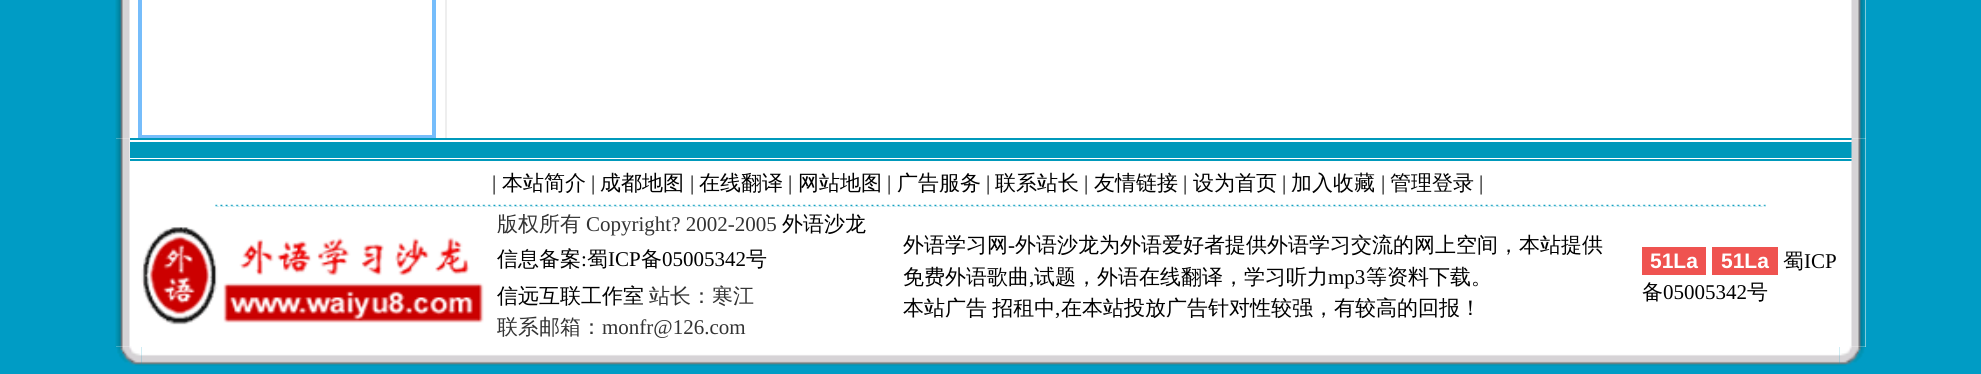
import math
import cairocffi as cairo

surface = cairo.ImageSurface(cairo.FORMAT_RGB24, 1981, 374)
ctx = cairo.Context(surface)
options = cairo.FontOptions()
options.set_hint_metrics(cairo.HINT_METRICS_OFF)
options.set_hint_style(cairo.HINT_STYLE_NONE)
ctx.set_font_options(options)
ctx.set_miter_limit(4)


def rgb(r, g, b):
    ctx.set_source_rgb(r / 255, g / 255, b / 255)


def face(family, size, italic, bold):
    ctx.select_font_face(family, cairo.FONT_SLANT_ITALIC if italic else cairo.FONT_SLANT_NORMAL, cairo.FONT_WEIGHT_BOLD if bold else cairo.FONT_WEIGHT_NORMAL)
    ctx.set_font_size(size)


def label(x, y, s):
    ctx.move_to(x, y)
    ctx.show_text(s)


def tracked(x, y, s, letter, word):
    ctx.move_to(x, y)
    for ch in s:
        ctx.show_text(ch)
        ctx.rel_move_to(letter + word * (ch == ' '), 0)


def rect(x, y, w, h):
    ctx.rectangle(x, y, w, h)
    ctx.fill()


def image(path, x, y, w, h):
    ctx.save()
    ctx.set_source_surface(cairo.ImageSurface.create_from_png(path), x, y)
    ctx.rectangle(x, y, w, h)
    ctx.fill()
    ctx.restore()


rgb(0, 156, 197)
ctx.paint()
rgb(255, 255, 255)
rect(129, 0, 1737, 138)
image('image0.png', 115, 0, 15, 139)
ctx.rectangle(139, -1, 296, 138)
rgb(118, 189, 251)
ctx.stroke()
ctx.rectangle(141, -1, 292, 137)
ctx.stroke()
rgb(238, 238, 238)
rect(445, 0, 2, 138)
image('image1.png', 1851, 0, 15, 138)
rgb(255, 255, 255)
rect(116, 138, 1750, 209)
image('image2.png', 115, 138, 15, 209)
rgb(0, 153, 187)
rect(130, 138, 1722, 2)
rect(130, 142, 1722, 16)
rect(130, 159, 1722, 2)
face('Liberation Serif', 21, 0, 0)
rgb(0, 0, 0)
label(492, 190, '|')
face('WenQuanYi Zen Hei Medium', 21, 0, 0)
label(502, 190, '本站简介')
face('Liberation Serif', 21, 0, 0)
label(591, 190, '|')
face('WenQuanYi Zen Hei Medium', 21, 0, 0)
label(600, 190, '成都地图')
face('Liberation Serif', 21, 0, 0)
label(690, 190, '|')
face('WenQuanYi Zen Hei Medium', 21, 0, 0)
label(699, 190, '在线翻译')
face('Liberation Serif', 21, 0, 0)
label(788, 190, '|')
face('WenQuanYi Zen Hei Medium', 21, 0, 0)
label(798, 190, '网站地图')
face('Liberation Serif', 21, 0, 0)
label(887, 190, '|')
face('WenQuanYi Zen Hei Medium', 21, 0, 0)
label(897, 190, '广告服务')
face('Liberation Serif', 21, 0, 0)
label(986, 190, '|')
face('WenQuanYi Zen Hei Medium', 21, 0, 0)
label(995, 190, '联系站长')
face('Liberation Serif', 21, 0, 0)
label(1084, 190, '|')
face('WenQuanYi Zen Hei Medium', 21, 0, 0)
label(1094, 190, '友情链接')
face('Liberation Serif', 21, 0, 0)
label(1183, 190, '|')
face('WenQuanYi Zen Hei Medium', 21, 0, 0)
label(1193, 190, '设为首页')
face('Liberation Serif', 21, 0, 0)
label(1282, 190, '|')
face('WenQuanYi Zen Hei Medium', 21, 0, 0)
label(1291, 190, '加入收藏')
face('Liberation Serif', 21, 0, 0)
label(1381, 190, '|')
face('WenQuanYi Zen Hei Medium', 21, 0, 0)
label(1390, 190, '管理登录')
face('Liberation Serif', 21, 0, 0)
label(1479, 190, '|')
image('image3.png', 215, 204, 1551, 3)
face('WenQuanYi Zen Hei Medium', 21, 0, 0)
rgb(51, 51, 51)
label(497, 231, '版权所有')
face('Liberation Serif', 21, 0, 0)
label(586, 231, 'Copyright? 2002-2005')
face('WenQuanYi Zen Hei Medium', 21, 0, 0)
rgb(0, 0, 0)
label(782, 231, '外语沙龙')
image('image4.png', 141, 227, 343, 98)
label(903, 252, '外语学习网')
face('Liberation Serif', 21, 0, 0)
label(1008, 252, '-')
face('WenQuanYi Zen Hei Medium', 21, 0, 0)
label(1015, 252, '外语沙龙为外语爱好者提供外语学习交流的网上空间，本站提供')
label(903, 284, '免费外语歌曲')
face('Liberation Serif', 21, 0, 0)
label(1029, 284, ',')
face('WenQuanYi Zen Hei Medium', 21, 0, 0)
label(1034, 284, '试题，外语在线翻译，学习听力')
face('Liberation Serif', 21, 0, 0)
label(1328, 284, 'mp3')
face('WenQuanYi Zen Hei Medium', 21, 0, 0)
label(1366, 284, '等资料下载。')
tracked(903, 315, '本站广告 招租中', 0, -1)
face('Liberation Serif', 21, 0, 0)
label(1055, 315, ',')
face('WenQuanYi Zen Hei Medium', 21, 0, 0)
label(1061, 315, '在本站投放广告针对性较强，有较高的回报！')
rgb(239, 83, 80)
rect(1642, 247, 64, 28)
face('Liberation Sans', 21, 0, 1)
rgb(255, 255, 255)
label(1650, 268, '51La')
rgb(239, 83, 80)
rect(1712, 247, 66, 28)
rgb(255, 255, 255)
label(1721, 268, '51La')
face('WenQuanYi Zen Hei Medium', 21, 0, 0)
rgb(0, 0, 0)
label(1783, 268, '蜀')
face('Liberation Serif', 21, 0, 0)
label(1804, 268, 'ICP')
face('WenQuanYi Zen Hei Medium', 21, 0, 0)
label(1642, 299, '备')
face('Liberation Serif', 21, 0, 0)
label(1663, 299, '05005342')
face('WenQuanYi Zen Hei Medium', 21, 0, 0)
label(1747, 299, '号')
label(497, 266, '信息备案')
face('Liberation Serif', 21, 0, 0)
label(581, 266, ':')
face('WenQuanYi Zen Hei Medium', 21, 0, 0)
label(587, 266, '蜀')
face('Liberation Serif', 21, 0, 0)
label(608, 266, 'ICP')
face('WenQuanYi Zen Hei Medium', 21, 0, 0)
label(641, 266, '备')
face('Liberation Serif', 21, 0, 0)
label(662, 266, '05005342')
face('WenQuanYi Zen Hei Medium', 21, 0, 0)
label(746, 266, '号')
label(497, 303, '信远互联工作室')
rgb(51, 51, 51)
label(649, 303, '站长：寒江')
label(497, 334, '联系邮箱：')
face('Liberation Serif', 21, 0, 0)
label(602, 334, 'monfr@126.com')
image('image5.png', 1851, 138, 15, 209)
image('image7.png', 141, 347, 1699, 19)
image('image6.png', 115, 346, 27, 20)
image('image8.png', 1839, 346, 27, 20)
surface.write_to_png('render.png')
